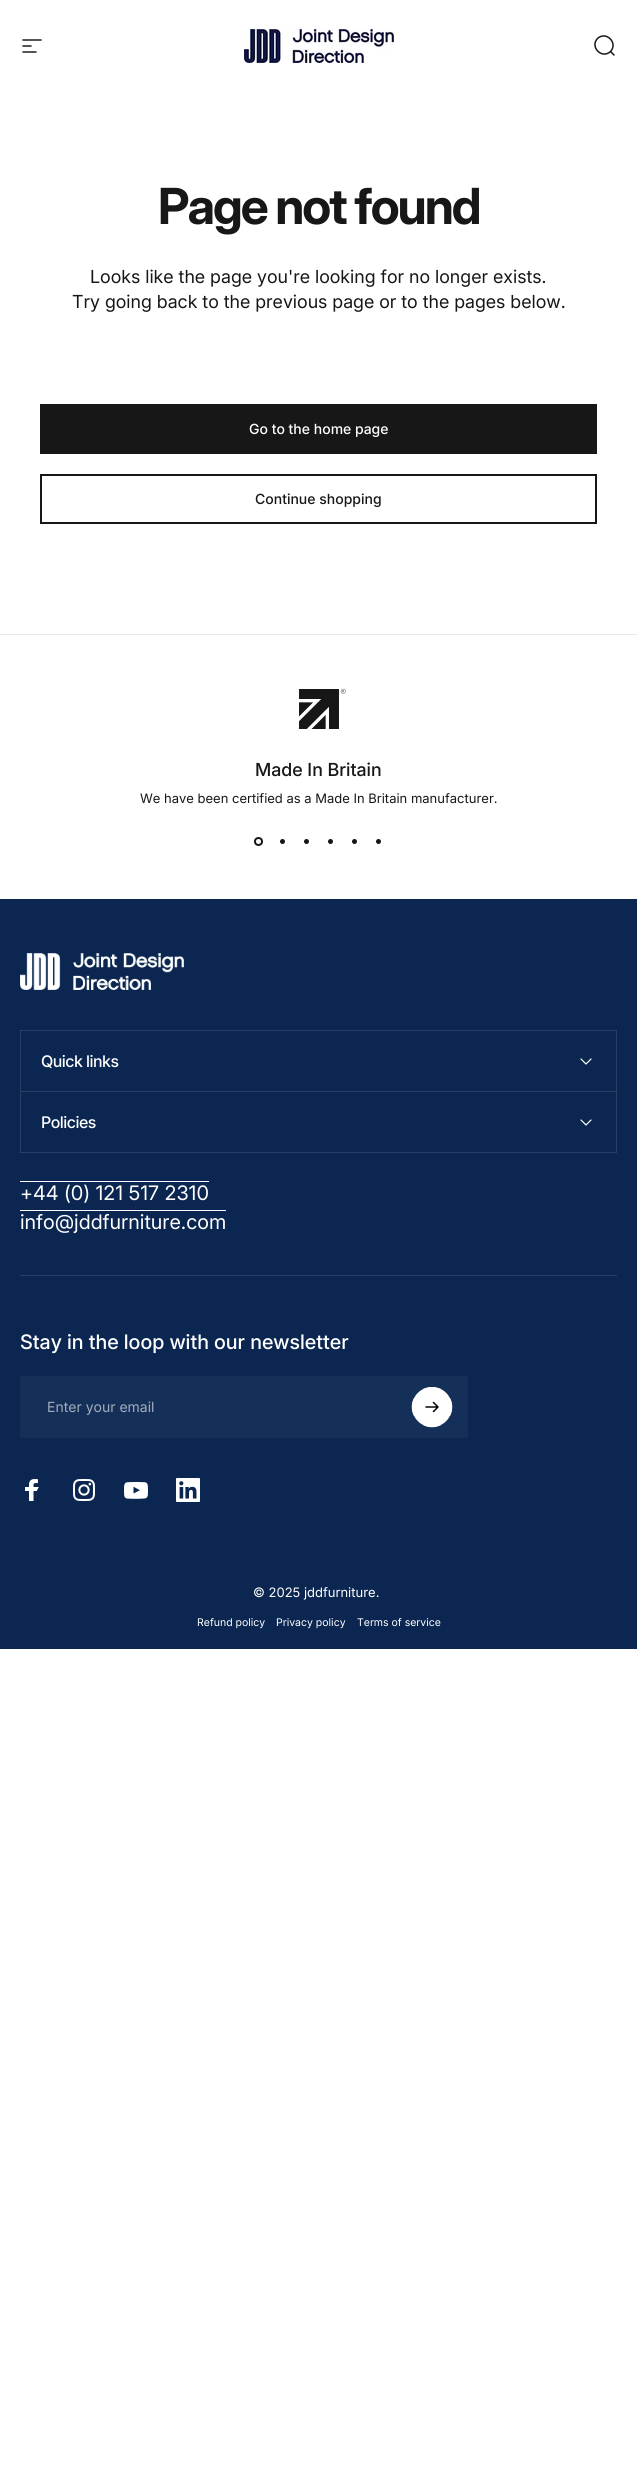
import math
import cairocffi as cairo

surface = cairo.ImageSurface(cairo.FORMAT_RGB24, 637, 2482)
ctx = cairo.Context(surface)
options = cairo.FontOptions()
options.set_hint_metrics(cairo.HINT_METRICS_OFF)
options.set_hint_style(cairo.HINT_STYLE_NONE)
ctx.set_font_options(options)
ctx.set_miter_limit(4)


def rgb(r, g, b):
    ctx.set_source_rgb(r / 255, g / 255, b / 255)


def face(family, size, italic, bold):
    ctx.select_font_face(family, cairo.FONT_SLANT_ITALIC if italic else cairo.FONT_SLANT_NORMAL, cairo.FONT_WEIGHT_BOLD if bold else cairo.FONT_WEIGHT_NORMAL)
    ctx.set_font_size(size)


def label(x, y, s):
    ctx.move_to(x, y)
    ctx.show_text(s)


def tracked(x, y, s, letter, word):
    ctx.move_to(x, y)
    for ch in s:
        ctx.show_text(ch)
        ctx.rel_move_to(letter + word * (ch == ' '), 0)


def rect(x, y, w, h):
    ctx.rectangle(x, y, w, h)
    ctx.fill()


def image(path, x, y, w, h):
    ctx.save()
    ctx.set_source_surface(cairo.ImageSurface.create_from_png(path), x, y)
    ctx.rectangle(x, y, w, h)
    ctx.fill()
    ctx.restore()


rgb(255, 255, 255)
ctx.paint()
ctx.new_path()
ctx.move_to(23, 40)
ctx.line_to(41, 40)
ctx.move_to(23, 46)
ctx.line_to(31, 46)
ctx.move_to(23, 52)
ctx.line_to(36, 52)
rgb(23, 23, 23)
ctx.set_line_width(1.5)
ctx.set_line_cap(cairo.LINE_CAP_ROUND)
ctx.stroke()
image('image0.png', 244, 29, 150, 34)
ctx.new_path()
ctx.move_to(614, 55)
ctx.line_to(610.5, 51.5)
ctx.move_to(610.5, 51.5)
ctx.curve_to(618.5, 43, 606, 30.5, 597.5, 38.5)
ctx.curve_to(589.5, 47, 602, 59.5, 610.5, 51.5)
ctx.close_path()
ctx.stroke()
face('Inter', 49.75, 0, 1)
tracked(158, 224, 'Page not found', -2, 0)
face('Inter', 18, 0, 0)
label(90, 283, 'Looks like the page you\'re looking for no longer exists.')
label(72, 308, 'Try going back to the previous page or to the pages below.')
rect(40, 404, 557, 50)
face('Inter Medium', 14, 0, 0)
rgb(255, 255, 255)
label(249, 434, 'Go to the home page')
ctx.rectangle(41, 475, 555, 48)
rgb(23, 23, 23)
ctx.set_line_width(2)
ctx.set_line_cap(cairo.LINE_CAP_BUTT)
ctx.stroke()
label(255, 504, 'Continue shopping')
rgb(232, 232, 232)
rect(0, 634, 637, 1)
image('image1.png', 299, 688, 47, 41)
face('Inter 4 Medium', 18, 0, 0)
rgb(23, 23, 23)
label(255, 776, 'Made In Britain')
face('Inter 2', 13, 0, 0)
label(140, 803, 'We have been certified as a Made In Britain manufacturer.')
ctx.new_path()
ctx.arc(258.5, 841.5, 3.5, 0, 2 * math.pi)
ctx.stroke()
ctx.arc(282.5, 841.5, 2.5, 0, 2 * math.pi)
ctx.fill()
ctx.arc(306.5, 841.5, 2.5, 0, 2 * math.pi)
ctx.fill()
ctx.arc(330.5, 841.5, 2.5, 0, 2 * math.pi)
ctx.fill()
ctx.arc(354.5, 841.5, 2.5, 0, 2 * math.pi)
ctx.fill()
ctx.arc(378.5, 841.5, 2.5, 0, 2 * math.pi)
ctx.fill()
rgb(11, 39, 81)
rect(0, 899, 637, 750)
image('image2.png', 20, 953, 164, 37)
rgb(39, 64, 101)
ctx.new_path()
ctx.move_to(20, 1030)
ctx.line_to(617, 1030)
ctx.line_to(616, 1031)
ctx.line_to(21, 1031)
ctx.close_path()
ctx.fill()
ctx.set_source_rgba(1, 1, 1, 0.11)
ctx.new_path()
ctx.move_to(617, 1030)
ctx.line_to(617, 1091)
ctx.line_to(616, 1091)
ctx.line_to(616, 1031)
ctx.close_path()
ctx.fill()
ctx.new_path()
ctx.move_to(20, 1091)
ctx.line_to(20, 1030)
ctx.line_to(21, 1031)
ctx.line_to(21, 1091)
ctx.close_path()
ctx.fill()
face('Inter 2 Medium', 16, 0, 0)
rgb(255, 255, 255)
tracked(41, 1067, 'Quick links', -0.5, 0)
ctx.new_path()
ctx.move_to(581, 1059)
ctx.line_to(586, 1064)
ctx.line_to(591, 1059)
ctx.set_line_width(1.2)
ctx.set_line_cap(cairo.LINE_CAP_ROUND)
ctx.set_line_join(cairo.LINE_JOIN_ROUND)
ctx.stroke()
ctx.rectangle(20.5, 1091.5, 596, 61)
rgb(39, 64, 101)
ctx.set_line_width(1)
ctx.set_line_cap(cairo.LINE_CAP_BUTT)
ctx.set_line_join(cairo.LINE_JOIN_MITER)
ctx.stroke()
rgb(255, 255, 255)
tracked(41, 1128, 'Policies', -0.5, 0)
ctx.new_path()
ctx.move_to(581, 1120)
ctx.line_to(586, 1125)
ctx.line_to(591, 1120)
ctx.set_line_width(1.2)
ctx.set_line_cap(cairo.LINE_CAP_ROUND)
ctx.set_line_join(cairo.LINE_JOIN_ROUND)
ctx.stroke()
rect(20, 1181, 189, 1)
face('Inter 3', 20, 0, 0)
label(20, 1200, '+44 (0) 121 517 2310')
rect(20, 1210, 206, 1)
label(20, 1229, 'info@jddfurniture.com')
rgb(39, 64, 101)
rect(20, 1275, 597, 1)
face('Inter 3 Medium', 20, 0, 0)
rgb(255, 255, 255)
label(20, 1349, 'Stay in the loop with our newsletter')
rgb(21, 48, 88)
rect(20, 1376, 448, 62)
face('Inter 2', 14, 0, 0)
rgb(161, 172, 188)
label(47, 1412, 'Enter your email')
rgb(255, 255, 255)
ctx.new_path()
ctx.arc(432, 1407, 20, 0, 2 * math.pi)
ctx.fill()
ctx.set_fill_rule(cairo.FILL_RULE_EVEN_ODD)
ctx.new_path()
ctx.move_to(432, 1387)
ctx.curve_to(429, 1387, 426, 1388, 423, 1389)
ctx.line_to(441, 1389)
ctx.curve_to(438, 1388, 435, 1387, 432, 1387)
ctx.close_path()
ctx.move_to(450, 1398)
ctx.curve_to(453, 1404, 453, 1410, 450, 1416)
ctx.close_path()
ctx.move_to(441, 1425)
ctx.curve_to(435, 1428, 429, 1428, 423, 1425)
ctx.close_path()
ctx.move_to(414, 1416)
ctx.curve_to(411, 1410, 411, 1404, 414, 1398)
ctx.close_path()
ctx.fill()
ctx.new_path()
ctx.move_to(426, 1407)
ctx.line_to(438, 1407)
ctx.move_to(438, 1407)
ctx.line_to(433.5, 1402.5)
ctx.move_to(438, 1407)
ctx.line_to(433.5, 1411.5)
rgb(0, 0, 0)
ctx.set_line_width(1.5)
ctx.stroke()
image('image3.png', 25, 1479, 14, 22)
image('image4.png', 73, 1479, 22, 22)
image('image5.png', 124, 1482, 24, 17)
image('image6.png', 176, 1478, 24, 24)
face('Inter 2', 13, 0, 0)
rgb(255, 255, 255)
label(253, 1597, '© 2025 jddfurniture.')
face('Inter 2', 10.5, 0, 0)
label(197, 1626, 'Refund policy')
label(276, 1626, 'Privacy policy')
label(357, 1626, 'Terms of service')
surface.write_to_png('render.png')
